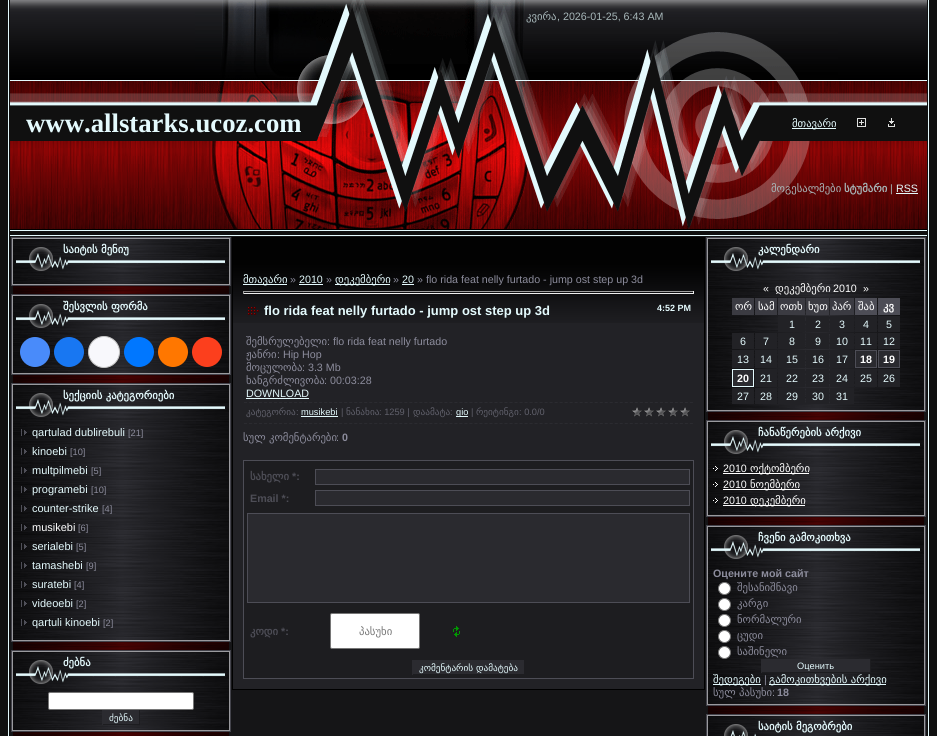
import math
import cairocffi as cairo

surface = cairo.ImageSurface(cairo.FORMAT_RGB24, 937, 736)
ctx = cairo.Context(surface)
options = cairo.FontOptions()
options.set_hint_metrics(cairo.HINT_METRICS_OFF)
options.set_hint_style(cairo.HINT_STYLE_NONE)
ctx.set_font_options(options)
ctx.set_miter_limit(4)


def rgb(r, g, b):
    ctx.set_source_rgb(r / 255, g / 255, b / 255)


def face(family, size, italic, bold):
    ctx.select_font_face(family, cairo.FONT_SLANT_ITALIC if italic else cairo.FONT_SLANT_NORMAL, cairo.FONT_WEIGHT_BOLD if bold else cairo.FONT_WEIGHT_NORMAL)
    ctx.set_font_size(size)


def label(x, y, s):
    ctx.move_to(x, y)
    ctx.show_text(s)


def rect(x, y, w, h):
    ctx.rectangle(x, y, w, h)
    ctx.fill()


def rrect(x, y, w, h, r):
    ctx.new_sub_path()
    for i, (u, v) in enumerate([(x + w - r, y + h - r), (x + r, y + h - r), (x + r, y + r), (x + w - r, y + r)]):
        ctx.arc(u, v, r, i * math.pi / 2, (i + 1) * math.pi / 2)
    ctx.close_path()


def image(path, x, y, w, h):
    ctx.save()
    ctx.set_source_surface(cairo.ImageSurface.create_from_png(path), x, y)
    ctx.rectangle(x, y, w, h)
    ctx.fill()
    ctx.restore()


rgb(21, 21, 23)
ctx.paint()
image('image0.png', 0, 0, 10, 736)
image('image1.png', 10, 0, 917, 236)
image('image2.png', 195, 0, 121, 103)
image('image3.png', 316, 0, 160, 229)
image('image4.png', 476, 0, 362, 106)
face('DejaVu Sans', 10.7, 0, 0)
rgb(167, 183, 185)
label(526, 20, 'კვირა')
face('Liberation Sans', 10.7, 0, 0)
label(557, 20, ', 2026-01-25, 6:43 AM')
rgb(16, 16, 16)
rect(10, 140, 306, 1)
face('Liberation Serif', 26.75, 0, 1)
rgb(228, 250, 253)
label(26, 132, 'www.allstarks.ucoz.com')
image('image5.png', 476, 106, 285, 35)
rgb(16, 16, 16)
rect(761, 140, 166, 1)
rgb(228, 250, 253)
rect(792, 128, 44, 1)
face('DejaVu Sans', 10.7, 0, 0)
label(792, 127, 'მთავარი')
image('image6.png', 857, 118, 9, 9)
image('image7.png', 888, 118, 7, 9)
image('image8.png', 195, 141, 121, 88)
image('image9.png', 476, 141, 285, 88)
image('image10.png', 761, 141, 77, 88)
rgb(167, 183, 185)
label(771, 192, 'მოგესალმები')
face('DejaVu Sans', 10.7, 0, 1)
label(844, 192, 'სტუმარი')
face('Liberation Sans', 10.7, 0, 0)
label(890, 192, '|')
rgb(228, 250, 253)
label(896, 192, 'RSS')
rect(896, 193, 22, 1)
rgb(154, 154, 158)
ctx.rectangle(11.5, 237.5, 219, 48)
ctx.fill_preserve()
rgb(67, 67, 75)
ctx.set_line_width(1)
ctx.stroke()
image('image11.png', 13, 239, 216, 35)
face('DejaVu Sans', 10.7, 0, 1)
rgb(228, 250, 253)
label(63, 253, 'საიტის მენიუ')
image('image12.png', 13, 274, 216, 10)
image('image13.png', 13, 286, 216, 8)
rgb(154, 154, 158)
ctx.rectangle(11.5, 294.5, 219, 80)
ctx.fill_preserve()
rgb(67, 67, 75)
ctx.stroke()
image('image11.png', 13, 296, 216, 35)
rgb(228, 250, 253)
label(63, 310, 'შესვლის ფორმა')
image('image14.png', 13, 331, 216, 42)
rgb(73, 139, 250)
ctx.arc(35, 352, 15, 0, 2 * math.pi)
ctx.fill()
rgb(24, 119, 242)
ctx.arc(69, 352, 15, 0, 2 * math.pi)
ctx.fill()
rgb(248, 248, 252)
ctx.arc(104, 352, 15.5, 0, 2 * math.pi)
ctx.fill_preserve()
rgb(196, 196, 196)
ctx.stroke()
rgb(0, 119, 255)
ctx.arc(139, 352, 15, 0, 2 * math.pi)
ctx.fill()
rgb(255, 119, 0)
ctx.arc(173, 352, 15, 0, 2 * math.pi)
ctx.fill()
rgb(252, 63, 29)
ctx.arc(207, 352, 15, 0, 2 * math.pi)
ctx.fill()
image('image13.png', 13, 375, 216, 8)
rgb(154, 154, 158)
ctx.rectangle(11.5, 383.5, 219, 258)
ctx.fill_preserve()
rgb(67, 67, 75)
ctx.stroke()
image('image11.png', 13, 385, 216, 35)
rgb(228, 250, 253)
label(63, 399, 'სექციის კატეგორიები')
image('image15.png', 13, 420, 216, 220)
image('image16.png', 21, 429, 6, 7)
face('Liberation Sans', 11, 0, 0)
label(32, 436, 'qartulad dublirebuli')
face('Liberation Sans', 9.25, 0, 0)
rgb(140, 140, 156)
label(128, 436, '[21]')
image('image17.png', 21, 448, 6, 7)
face('Liberation Sans', 11, 0, 0)
rgb(228, 250, 253)
label(32, 455, 'kinoebi')
face('Liberation Sans', 9.25, 0, 0)
rgb(140, 140, 156)
label(70, 455, '[10]')
image('image18.png', 21, 467, 6, 7)
face('Liberation Sans', 11, 0, 0)
rgb(228, 250, 253)
label(32, 474, 'multpilmebi')
face('Liberation Sans', 9.25, 0, 0)
rgb(140, 140, 156)
label(91, 474, '[5]')
image('image19.png', 21, 486, 6, 7)
face('Liberation Sans', 11, 0, 0)
rgb(228, 250, 253)
label(32, 493, 'programebi')
face('Liberation Sans', 9.25, 0, 0)
rgb(140, 140, 156)
label(91, 493, '[10]')
image('image20.png', 21, 505, 6, 7)
face('Liberation Sans', 11, 0, 0)
rgb(228, 250, 253)
label(32, 512, 'counter-strike')
face('Liberation Sans', 9.25, 0, 0)
rgb(140, 140, 156)
label(102, 512, '[4]')
image('image21.png', 21, 524, 6, 7)
face('Liberation Sans', 11, 0, 0)
rgb(255, 255, 255)
label(32, 531, 'musikebi')
face('Liberation Sans', 9.25, 0, 0)
rgb(140, 140, 156)
label(78, 531, '[6]')
image('image22.png', 21, 543, 6, 7)
face('Liberation Sans', 11, 0, 0)
rgb(228, 250, 253)
label(32, 550, 'serialebi')
face('Liberation Sans', 9.25, 0, 0)
rgb(140, 140, 156)
label(76, 550, '[5]')
image('image23.png', 21, 562, 6, 7)
face('Liberation Sans', 11, 0, 0)
rgb(228, 250, 253)
label(32, 569, 'tamashebi')
face('Liberation Sans', 9.25, 0, 0)
rgb(140, 140, 156)
label(86, 569, '[9]')
image('image21.png', 21, 581, 6, 7)
face('Liberation Sans', 11, 0, 0)
rgb(228, 250, 253)
label(32, 588, 'suratebi')
face('Liberation Sans', 9.25, 0, 0)
rgb(140, 140, 156)
label(74, 588, '[4]')
image('image22.png', 21, 600, 6, 7)
face('Liberation Sans', 11, 0, 0)
rgb(228, 250, 253)
label(32, 607, 'videoebi')
face('Liberation Sans', 9.25, 0, 0)
rgb(140, 140, 156)
label(76, 607, '[2]')
image('image23.png', 21, 619, 6, 7)
face('Liberation Sans', 11, 0, 0)
rgb(228, 250, 253)
label(32, 626, 'qartuli kinoebi')
face('Liberation Sans', 9.25, 0, 0)
rgb(140, 140, 156)
label(103, 626, '[2]')
image('image13.png', 13, 642, 216, 8)
rgb(154, 154, 158)
ctx.rectangle(11.5, 650.5, 219, 81)
ctx.fill_preserve()
rgb(67, 67, 75)
ctx.stroke()
image('image11.png', 13, 652, 216, 35)
face('DejaVu Sans', 10.7, 0, 1)
rgb(228, 250, 253)
label(63, 666, 'ძებნა')
image('image24.png', 13, 687, 216, 43)
rgb(255, 255, 255)
rrect(48.5, 692.5, 145, 17, 1.5)
ctx.fill_preserve()
rgb(118, 118, 118)
ctx.stroke()
rgb(43, 43, 48)
rect(103, 710, 36, 14)
rgb(29, 29, 32)
rect(139, 710, 1, 15)
rect(102, 724, 38, 1)
rgb(43, 43, 48)
rect(102, 710, 1, 15)
face('DejaVu Sans', 9.25, 0, 0)
rgb(228, 250, 253)
label(109, 721, 'ძებნა')
image('image25.png', 13, 732, 216, 4)
ctx.rectangle(232.5, 237.5, 472, 452)
rgb(0, 0, 0)
ctx.stroke()
rgb(2, 2, 2)
rect(233, 238, 471, 25)
rgb(34, 34, 38)
rect(233, 323, 471, 366)
image('image26.png', 233, 263, 471, 60)
rgb(228, 250, 253)
rect(243, 284, 44, 1)
face('DejaVu Sans', 10.7, 0, 0)
label(243, 283, 'მთავარი')
face('Liberation Sans', 10.7, 0, 0)
rgb(140, 140, 156)
label(290, 283, '»')
rgb(228, 250, 253)
label(299, 283, '2010')
rect(299, 284, 24, 1)
rgb(140, 140, 156)
label(326, 283, '»')
rgb(228, 250, 253)
rect(335, 284, 55, 1)
face('DejaVu Sans', 10.7, 0, 0)
label(335, 283, 'დეკემბერი')
face('Liberation Sans', 10.7, 0, 0)
rgb(140, 140, 156)
label(393, 283, '»')
rgb(228, 250, 253)
label(402, 283, '20')
rect(402, 284, 12, 1)
rgb(140, 140, 156)
label(417, 283, '» flo rida feat nelly furtado - jump ost step up 3d')
rgb(159, 159, 159)
rect(243, 291, 451, 1)
rgb(238, 238, 238)
rect(693, 291, 1, 3)
rect(243, 293, 451, 1)
rgb(159, 159, 159)
rect(243, 291, 1, 3)
image('image27.png', 248, 307, 11, 8)
face('Liberation Sans', 13, 0, 1)
rgb(228, 250, 253)
label(264, 315, 'flo rida feat nelly furtado - jump ost step up 3d')
face('Liberation Sans', 9, 0, 1)
label(657, 311, '4:52 PM')
face('DejaVu Sans', 10.7, 0, 0)
rgb(140, 140, 156)
label(246, 345, 'შემსრულებელი')
face('Liberation Sans', 10.7, 0, 0)
label(327, 345, ': flo rida feat nelly furtado')
face('DejaVu Sans', 10.7, 0, 0)
label(246, 358, 'ჟანრი')
face('Liberation Sans', 10.7, 0, 0)
label(277, 358, ': Hip Hop')
face('DejaVu Sans', 10.7, 0, 0)
label(246, 371, 'მოცულობა')
face('Liberation Sans', 10.7, 0, 0)
label(302, 371, ': 3.3 Mb')
face('DejaVu Sans', 10.7, 0, 0)
label(246, 384, 'ხანგრძლივობა')
face('Liberation Sans', 10.7, 0, 0)
label(324, 384, ': 00:03:28')
rgb(228, 250, 253)
label(246, 397, 'DOWNLOAD')
rect(246, 398, 63, 1)
ctx.new_path()
ctx.move_to(244, 402.5)
ctx.line_to(693, 402.5)
rgb(43, 43, 48)
ctx.set_dash([3, 2.01])
ctx.stroke()
ctx.new_path()
ctx.move_to(244, 423.5)
ctx.line_to(693, 423.5)
ctx.stroke()
face('DejaVu Sans', 9.25, 0, 0)
rgb(96, 96, 107)
label(246, 415, 'კატეგორია')
face('Liberation Sans', 9.25, 0, 0)
label(296, 415, ':')
rgb(228, 250, 253)
label(301, 415, 'musikebi')
rect(301, 416, 37, 1)
rgb(96, 96, 107)
label(341, 415, '|')
face('DejaVu Sans', 9.25, 0, 0)
label(346, 415, 'ნანახია')
face('Liberation Sans', 9.25, 0, 0)
label(379, 415, ': 1259 |')
face('DejaVu Sans', 9.25, 0, 0)
label(413, 415, 'დაამატა')
face('Liberation Sans', 9.25, 0, 0)
label(450, 415, ':')
rgb(228, 250, 253)
rect(456, 416, 12, 1)
label(456, 415, 'gio')
rgb(96, 96, 107)
label(471, 415, '|')
face('DejaVu Sans', 9.25, 0, 0)
label(476, 415, 'რეიტინგი')
face('Liberation Sans', 9.25, 0, 0)
label(519, 415, ': 0.0/0')
image('image28.png', 632, 407, 58, 10)
face('DejaVu Sans', 10.7, 0, 0)
rgb(140, 140, 156)
label(243, 441, 'სულ კომენტარები')
face('Liberation Sans', 10.7, 0, 0)
label(336, 441, ':')
face('Liberation Sans', 10.7, 0, 1)
label(342, 441, '0')
rgb(29, 29, 32)
ctx.rectangle(243.5, 460.5, 450, 218)
ctx.fill_preserve()
rgb(77, 77, 86)
ctx.set_dash([])
ctx.stroke()
face('DejaVu Sans', 10.7, 0, 1)
label(250, 480, 'სახელი')
face('Liberation Sans', 10.7, 0, 1)
label(292, 480, '*:')
rgb(42, 42, 47)
ctx.rectangle(315.5, 469.5, 374, 15)
ctx.fill_preserve()
rgb(77, 77, 86)
ctx.stroke()
label(250, 502, 'Email *:')
rgb(42, 42, 47)
ctx.rectangle(315.5, 490.5, 374, 15)
ctx.fill_preserve()
rgb(77, 77, 86)
ctx.stroke()
rgb(42, 42, 47)
ctx.rectangle(247.5, 513.5, 442, 89)
ctx.fill_preserve()
rgb(77, 77, 86)
ctx.stroke()
face('DejaVu Sans', 10.7, 0, 1)
label(250, 635, 'კოდი')
face('Liberation Sans', 10.7, 0, 1)
label(281, 635, '*:')
rgb(255, 255, 255)
rrect(330.5, 613.5, 89, 35, 1.5)
ctx.fill_preserve()
rgb(118, 118, 118)
ctx.stroke()
face('DejaVu Sans', 10.7, 0, 0)
rgb(117, 117, 117)
label(359, 635, 'პასუხი')
image('image29.png', 453, 626, 7, 11)
rgb(43, 43, 48)
rect(413, 660, 111, 14)
rect(412, 660, 1, 15)
face('DejaVu Sans', 9.25, 0, 0)
rgb(228, 250, 253)
label(419, 671, 'კომენტარის დამატება')
rgb(154, 154, 158)
ctx.rectangle(706.5, 237.5, 219, 174)
ctx.fill_preserve()
rgb(67, 67, 75)
ctx.stroke()
image('image11.png', 708, 239, 216, 35)
face('DejaVu Sans', 10.7, 0, 1)
rgb(228, 250, 253)
label(758, 253, 'კალენდარი')
image('image30.png', 708, 274, 216, 136)
face('Liberation Sans', 10.7, 0, 0)
rgb(255, 255, 255)
label(763, 292, '«')
face('DejaVu Sans', 10.7, 0, 0)
label(775, 292, 'დეკემბერი')
face('Liberation Sans', 10.7, 0, 0)
label(833, 292, '2010')
label(863, 292, '»')
rgb(59, 59, 66)
rect(732, 298, 22, 17)
face('DejaVu Sans', 10.7, 0, 0)
rgb(255, 255, 255)
label(735, 310, 'ორ')
rgb(59, 59, 66)
rect(755, 298, 22, 17)
rgb(255, 255, 255)
label(758, 310, 'სამ')
rgb(59, 59, 66)
rect(778, 298, 27, 17)
rgb(255, 255, 255)
label(780, 310, 'ოთხ')
rgb(59, 59, 66)
rect(806, 298, 23, 17)
rgb(255, 255, 255)
label(808, 310, 'ხუთ')
rgb(59, 59, 66)
rect(830, 298, 24, 17)
rgb(255, 255, 255)
label(832, 310, 'პარ')
rgb(77, 77, 86)
rect(855, 298, 22, 17)
rgb(255, 255, 255)
label(858, 310, 'შაბ')
rgb(77, 77, 86)
rect(878, 298, 22, 17)
face('DejaVu Sans', 10.7, 0, 1)
rgb(255, 255, 255)
label(883, 310, 'კვ')
rgb(34, 34, 38)
rect(778, 316, 27, 16)
face('Liberation Sans', 10.7, 0, 0)
rgb(228, 250, 253)
label(789, 328, '1')
rgb(34, 34, 38)
rect(806, 316, 23, 16)
rgb(228, 250, 253)
label(815, 328, '2')
rgb(34, 34, 38)
rect(830, 316, 24, 16)
rgb(228, 250, 253)
label(839, 328, '3')
rgb(34, 34, 38)
rect(855, 316, 22, 16)
rgb(228, 250, 253)
label(863, 328, '4')
rgb(34, 34, 38)
rect(878, 316, 22, 16)
rgb(228, 250, 253)
label(886, 328, '5')
rgb(34, 34, 38)
rect(732, 333, 22, 16)
rgb(228, 250, 253)
label(740, 345, '6')
rgb(34, 34, 38)
rect(755, 333, 22, 16)
rgb(228, 250, 253)
label(763, 345, '7')
rgb(34, 34, 38)
rect(778, 333, 27, 16)
rgb(228, 250, 253)
label(789, 345, '8')
rgb(34, 34, 38)
rect(806, 333, 23, 16)
rgb(228, 250, 253)
label(815, 345, '9')
rgb(34, 34, 38)
rect(830, 333, 24, 16)
rgb(228, 250, 253)
label(836, 345, '10')
rgb(34, 34, 38)
rect(855, 333, 22, 16)
rgb(228, 250, 253)
label(860, 345, '11')
rgb(34, 34, 38)
rect(878, 333, 22, 16)
rgb(228, 250, 253)
label(883, 345, '12')
rgb(34, 34, 38)
rect(732, 350, 22, 18)
rgb(228, 250, 253)
label(737, 363, '13')
rgb(34, 34, 38)
rect(755, 350, 22, 18)
rgb(228, 250, 253)
label(760, 363, '14')
rgb(34, 34, 38)
rect(778, 350, 27, 18)
rgb(228, 250, 253)
label(786, 363, '15')
rgb(34, 34, 38)
rect(806, 350, 23, 18)
rgb(228, 250, 253)
label(812, 363, '16')
rgb(34, 34, 38)
rect(830, 350, 24, 18)
rgb(228, 250, 253)
label(836, 363, '17')
rgb(42, 42, 47)
ctx.rectangle(855.5, 350.5, 21, 17)
ctx.fill_preserve()
rgb(77, 77, 86)
ctx.stroke()
face('Liberation Sans', 10.7, 0, 1)
rgb(255, 255, 255)
label(860, 363, '18')
rgb(42, 42, 47)
ctx.rectangle(878.5, 350.5, 21, 17)
ctx.fill_preserve()
rgb(77, 77, 86)
ctx.stroke()
rgb(255, 255, 255)
label(883, 363, '19')
rgb(43, 43, 48)
ctx.rectangle(732.5, 369.5, 21, 17)
ctx.fill_preserve()
rgb(228, 250, 253)
ctx.stroke()
rgb(255, 255, 255)
label(737, 382, '20')
rgb(34, 34, 38)
rect(755, 369, 22, 18)
face('Liberation Sans', 10.7, 0, 0)
rgb(228, 250, 253)
label(760, 382, '21')
rgb(34, 34, 38)
rect(778, 369, 27, 18)
rgb(228, 250, 253)
label(786, 382, '22')
rgb(34, 34, 38)
rect(806, 369, 23, 18)
rgb(228, 250, 253)
label(812, 382, '23')
rgb(34, 34, 38)
rect(830, 369, 24, 18)
rgb(228, 250, 253)
label(836, 382, '24')
rgb(34, 34, 38)
rect(855, 369, 22, 18)
rgb(228, 250, 253)
label(860, 382, '25')
rgb(34, 34, 38)
rect(878, 369, 22, 18)
rgb(228, 250, 253)
label(883, 382, '26')
rgb(34, 34, 38)
rect(732, 388, 22, 16)
rgb(228, 250, 253)
label(737, 400, '27')
rgb(34, 34, 38)
rect(755, 388, 22, 16)
rgb(228, 250, 253)
label(760, 400, '28')
rgb(34, 34, 38)
rect(778, 388, 27, 16)
rgb(228, 250, 253)
label(786, 400, '29')
rgb(34, 34, 38)
rect(806, 388, 23, 16)
rgb(228, 250, 253)
label(812, 400, '30')
rgb(34, 34, 38)
rect(830, 388, 24, 16)
rgb(228, 250, 253)
label(836, 400, '31')
image('image13.png', 708, 412, 216, 8)
rgb(154, 154, 158)
ctx.rectangle(706.5, 420.5, 219, 96)
ctx.fill_preserve()
rgb(67, 67, 75)
ctx.stroke()
image('image11.png', 708, 422, 216, 35)
face('DejaVu Sans', 10.7, 0, 1)
rgb(228, 250, 253)
label(758, 436, 'ჩანაწერების არქივი')
image('image31.png', 708, 457, 216, 58)
image('image32.png', 713, 466, 5, 5)
face('Liberation Sans', 10.7, 0, 0)
rgb(255, 255, 255)
label(723, 472, '2010')
rect(723, 473, 86, 1)
face('DejaVu Sans', 10.7, 0, 0)
label(750, 472, 'ოქტომბერი')
image('image33.png', 713, 482, 5, 5)
face('Liberation Sans', 10.7, 0, 0)
label(723, 488, '2010')
rect(723, 489, 77, 1)
face('DejaVu Sans', 10.7, 0, 0)
label(750, 488, 'ნოემბერი')
image('image34.png', 713, 498, 5, 5)
face('Liberation Sans', 10.7, 0, 0)
label(723, 504, '2010')
rect(723, 505, 82, 1)
face('DejaVu Sans', 10.7, 0, 0)
label(750, 504, 'დეკემბერი')
image('image13.png', 708, 517, 216, 8)
rgb(154, 154, 158)
ctx.rectangle(706.5, 525.5, 219, 180)
ctx.fill_preserve()
rgb(67, 67, 75)
ctx.stroke()
image('image11.png', 708, 527, 216, 35)
face('DejaVu Sans', 10.7, 0, 1)
rgb(228, 250, 253)
label(758, 541, 'ჩვენი გამოკითხვა')
image('image35.png', 708, 562, 216, 142)
face('Liberation Sans', 10.7, 0, 1)
rgb(140, 140, 156)
label(713, 577, 'Оцените мой сайт')
rgb(255, 255, 255)
ctx.new_path()
ctx.arc(724.5, 588.5, 6, 0, 2 * math.pi)
ctx.fill_preserve()
rgb(118, 118, 118)
ctx.stroke()
face('DejaVu Sans', 10.7, 0, 0)
rgb(140, 140, 156)
label(737, 591, 'შესანიშნავი')
rgb(255, 255, 255)
ctx.new_path()
ctx.arc(724.5, 604.5, 6, 0, 2 * math.pi)
ctx.fill_preserve()
rgb(118, 118, 118)
ctx.stroke()
rgb(140, 140, 156)
label(737, 607, 'კარგი')
rgb(255, 255, 255)
ctx.new_path()
ctx.arc(724.5, 620.5, 6, 0, 2 * math.pi)
ctx.fill_preserve()
rgb(118, 118, 118)
ctx.stroke()
rgb(140, 140, 156)
label(737, 623, 'ნორმალური')
rgb(255, 255, 255)
ctx.new_path()
ctx.arc(724.5, 636.5, 6, 0, 2 * math.pi)
ctx.fill_preserve()
rgb(118, 118, 118)
ctx.stroke()
rgb(140, 140, 156)
label(737, 639, 'ცუდი')
rgb(255, 255, 255)
ctx.new_path()
ctx.arc(724.5, 652.5, 6, 0, 2 * math.pi)
ctx.fill_preserve()
rgb(118, 118, 118)
ctx.stroke()
rgb(140, 140, 156)
label(737, 655, 'საშინელი')
rgb(43, 43, 48)
rect(762, 659, 108, 13)
rgb(29, 29, 32)
rect(870, 659, 1, 14)
rect(761, 672, 110, 1)
rgb(43, 43, 48)
rect(761, 659, 1, 14)
face('Liberation Sans', 9.25, 0, 0)
rgb(228, 250, 253)
label(797, 669, 'Оценить')
rect(713, 684, 48, 1)
face('DejaVu Sans', 10.7, 0, 0)
label(713, 683, 'შედეგები')
face('Liberation Sans', 10.7, 0, 0)
rgb(140, 140, 156)
label(764, 683, '|')
rgb(228, 250, 253)
rect(769, 684, 117, 1)
face('DejaVu Sans', 10.7, 0, 0)
label(769, 683, 'გამოკითხვების არქივი')
rgb(140, 140, 156)
label(713, 696, 'სულ პასუხი')
face('Liberation Sans', 10.7, 0, 0)
label(772, 696, ':')
face('Liberation Sans', 10.7, 0, 1)
label(777, 696, '18')
image('image13.png', 708, 706, 216, 8)
rgb(154, 154, 158)
ctx.rectangle(706.5, 714.5, 219, 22)
ctx.fill_preserve()
rgb(67, 67, 75)
ctx.stroke()
image('image36.png', 708, 716, 216, 20)
face('DejaVu Sans', 10.7, 0, 1)
rgb(228, 250, 253)
label(758, 730, 'საიტის მეგობრები')
image('image37.png', 927, 0, 10, 736)
surface.write_to_png('render.png')
